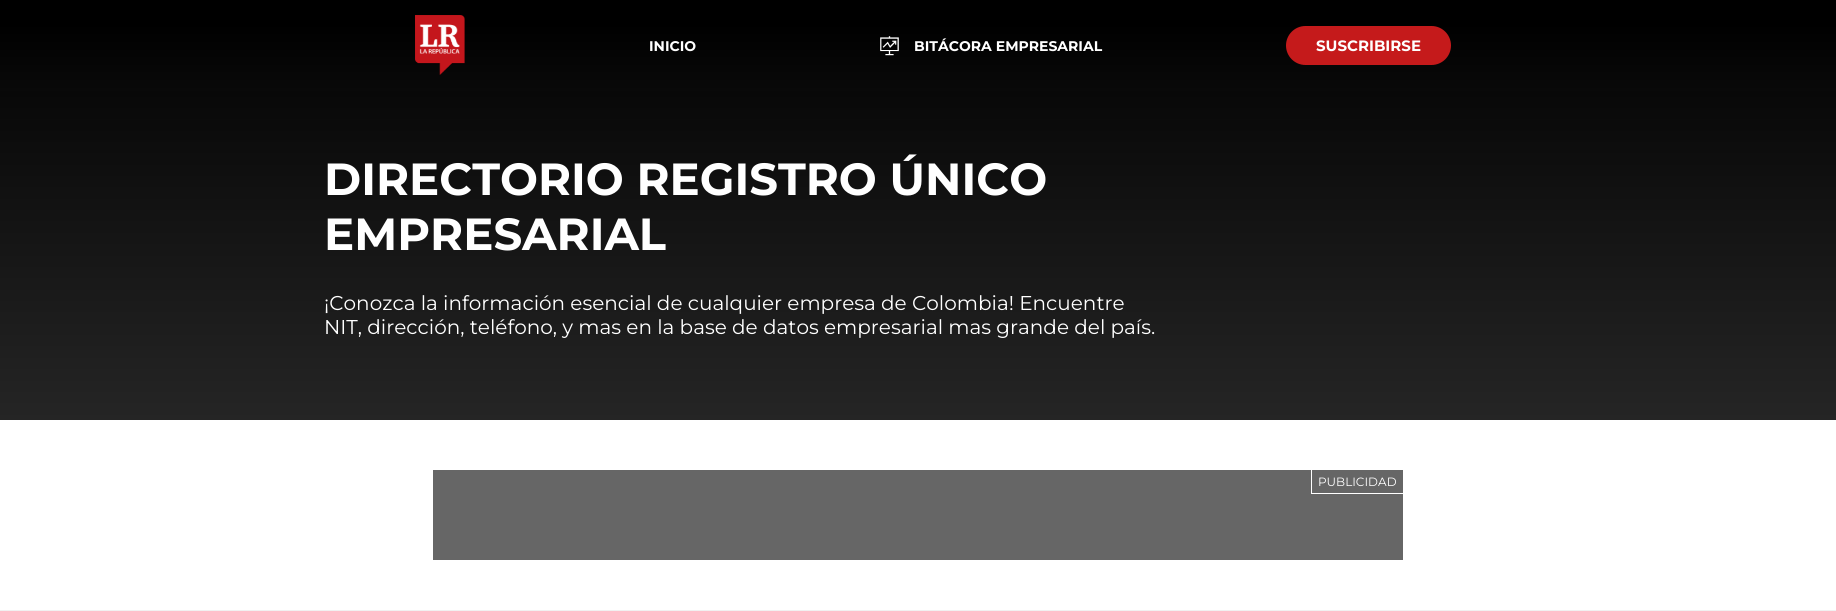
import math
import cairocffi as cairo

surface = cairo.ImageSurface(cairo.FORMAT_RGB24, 1836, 611)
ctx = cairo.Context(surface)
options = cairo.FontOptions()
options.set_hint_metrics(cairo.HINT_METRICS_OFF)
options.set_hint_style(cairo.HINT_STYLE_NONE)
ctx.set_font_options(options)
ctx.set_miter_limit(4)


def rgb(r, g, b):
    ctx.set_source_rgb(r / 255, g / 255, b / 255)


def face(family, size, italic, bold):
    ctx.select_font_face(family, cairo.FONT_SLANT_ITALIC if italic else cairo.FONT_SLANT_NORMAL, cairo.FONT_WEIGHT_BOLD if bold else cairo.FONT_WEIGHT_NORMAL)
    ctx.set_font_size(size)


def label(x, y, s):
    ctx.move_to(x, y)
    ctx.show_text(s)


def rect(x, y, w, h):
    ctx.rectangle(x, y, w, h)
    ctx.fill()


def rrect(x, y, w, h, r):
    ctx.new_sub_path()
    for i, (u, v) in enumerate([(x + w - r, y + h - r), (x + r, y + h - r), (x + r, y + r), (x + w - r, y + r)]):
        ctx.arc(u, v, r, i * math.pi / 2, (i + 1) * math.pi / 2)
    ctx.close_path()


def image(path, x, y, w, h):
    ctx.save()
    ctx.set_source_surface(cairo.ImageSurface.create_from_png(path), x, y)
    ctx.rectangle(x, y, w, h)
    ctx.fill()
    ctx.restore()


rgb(255, 255, 255)
ctx.paint()
gradient = cairo.LinearGradient(918, 0, 918, 420)
gradient.add_color_stop_rgba(0, 0, 0, 0, 1)
gradient.add_color_stop_rgba(1, 0.145, 0.145, 0.145, 1)
ctx.set_source(gradient)
rect(0, 91, 1836, 329)
gradient = cairo.LinearGradient(933, 0, 933, 91)
gradient.add_color_stop_rgba(0.25, 0, 0, 0, 1)
gradient.add_color_stop_rgba(1, 0.035, 0.035, 0.035, 1)
ctx.set_source(gradient)
rect(0, 0, 1836, 91)
image('image0.png', 415, 15, 50, 60)
face('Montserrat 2 Thin', 14, 0, 0)
rgb(255, 255, 255)
label(649, 51, 'INICIO')
image('image1.png', 880, 36, 19, 20)
label(914, 51, 'BITÁCORA EMPRESARIAL')
rgb(197, 26, 27)
rrect(1286, 26, 165, 39, 19.5)
ctx.fill()
face('Montserrat 2 Thin', 15, 0, 0)
rgb(255, 255, 255)
label(1316, 51, 'SUSCRIBIRSE')
face('Montserrat 2 Thin', 45, 0, 0)
label(324, 195, 'DIRECTORIO REGISTRO ÚNICO')
label(324, 250, 'EMPRESARIAL')
face('Montserrat Thin', 20, 0, 0)
label(324, 310, '¡Conozca la información esencial de cualquier empresa de Colombia! Encuentre')
label(324, 334, 'NIT, dirección, teléfono, y mas en la base de datos empresarial mas grande del país.')
rgb(102, 102, 102)
rect(433, 470, 970, 90)
rgb(255, 255, 255)
rect(1311, 493, 92, 1)
rect(1311, 470, 1, 24)
face('Montserrat Thin', 12, 0, 0)
label(1318, 486, 'PUBLICIDAD')
rgb(241, 241, 241)
rect(0, 610, 1836, 1)
surface.write_to_png('render.png')
